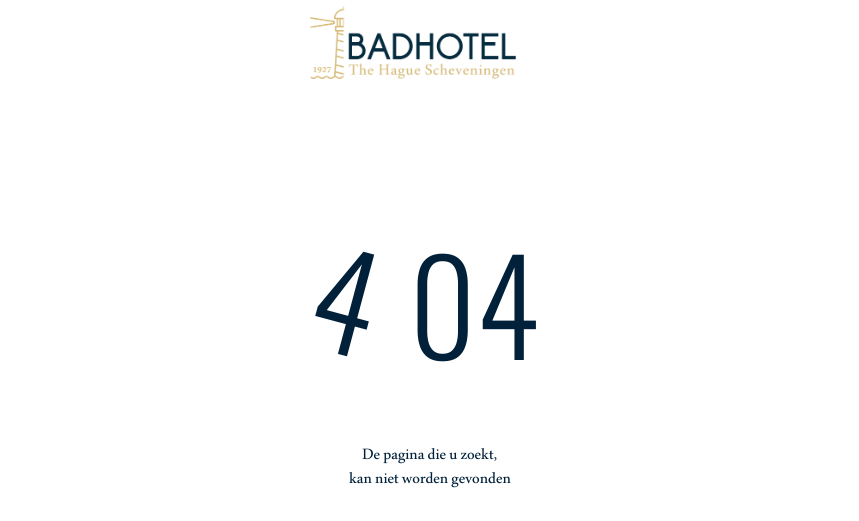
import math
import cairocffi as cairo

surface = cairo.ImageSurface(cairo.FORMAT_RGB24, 859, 521)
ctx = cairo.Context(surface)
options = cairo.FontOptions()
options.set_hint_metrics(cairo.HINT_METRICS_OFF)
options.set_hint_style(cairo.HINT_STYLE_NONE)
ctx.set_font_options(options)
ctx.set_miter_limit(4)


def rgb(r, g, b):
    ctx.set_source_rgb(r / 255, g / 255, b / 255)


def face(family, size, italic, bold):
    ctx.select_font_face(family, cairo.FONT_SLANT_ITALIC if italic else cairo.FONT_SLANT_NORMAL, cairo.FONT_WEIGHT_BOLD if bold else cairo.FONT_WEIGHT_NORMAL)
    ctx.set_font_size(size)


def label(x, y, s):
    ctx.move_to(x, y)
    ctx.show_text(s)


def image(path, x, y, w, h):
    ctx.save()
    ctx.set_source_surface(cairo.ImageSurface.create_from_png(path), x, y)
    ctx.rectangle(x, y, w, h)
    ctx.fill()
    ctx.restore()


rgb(255, 255, 255)
ctx.paint()
image('image0.png', 310, 6, 206, 73)
face('Oswald Light', 130, 0, 0)
rgb(1, 33, 59)
ctx.save()
ctx.translate(301, 344)
ctx.rotate(15 * math.pi / 180)
label(0, 0, '4')
ctx.restore()
label(409, 360, '04')
face('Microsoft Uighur', 22, 0, 0)
label(362, 459, 'De pagina die u zoekt,')
label(349, 483, 'kan niet worden gevonden')
surface.write_to_png('render.png')
